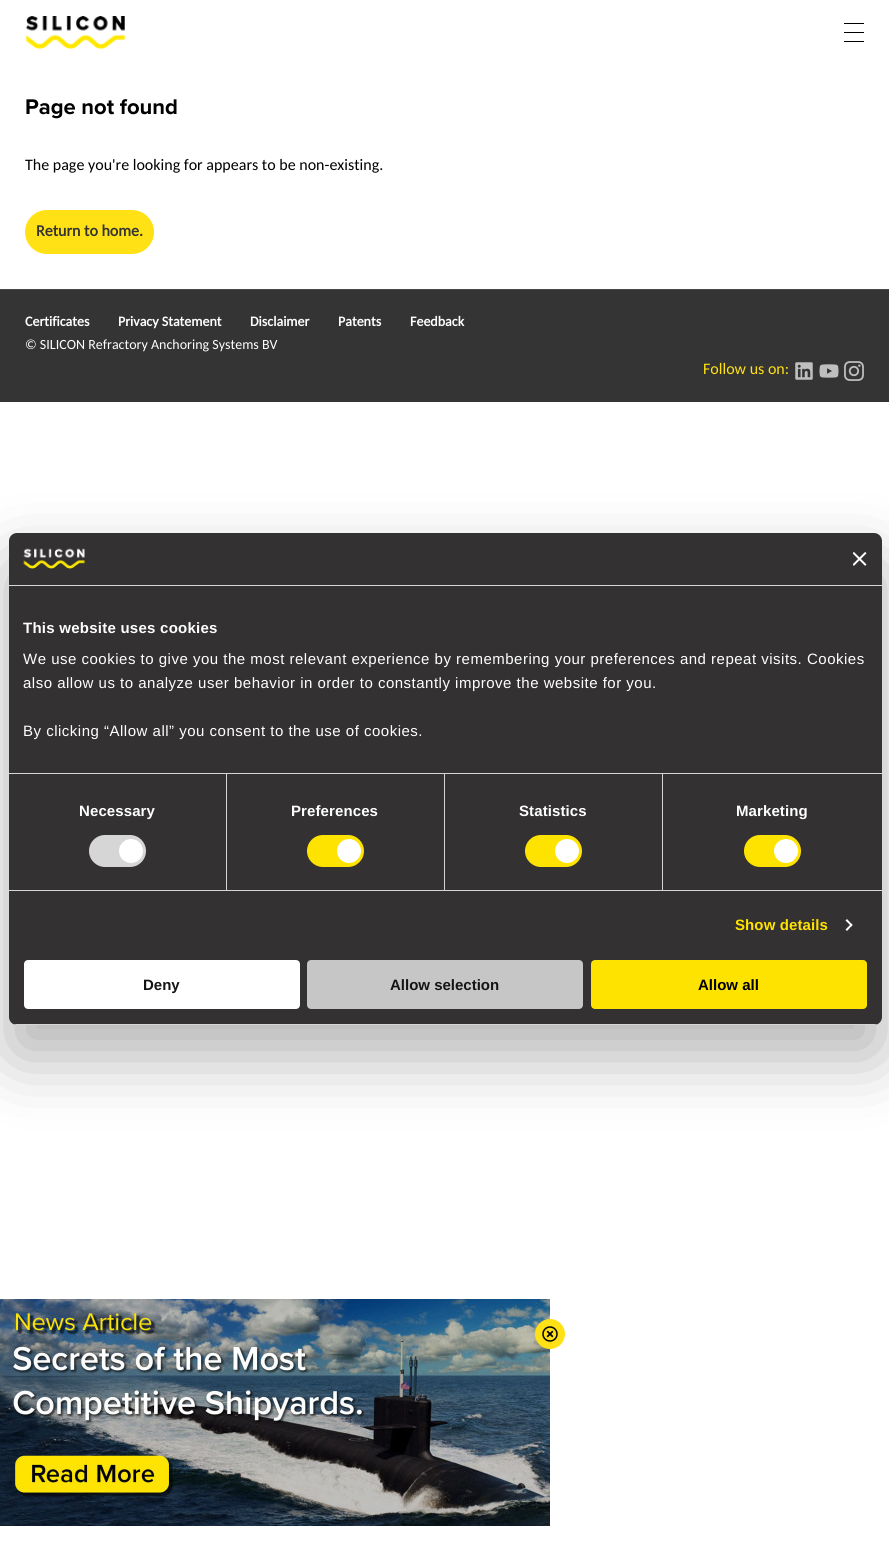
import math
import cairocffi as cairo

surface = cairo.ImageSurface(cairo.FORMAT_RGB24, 889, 1557)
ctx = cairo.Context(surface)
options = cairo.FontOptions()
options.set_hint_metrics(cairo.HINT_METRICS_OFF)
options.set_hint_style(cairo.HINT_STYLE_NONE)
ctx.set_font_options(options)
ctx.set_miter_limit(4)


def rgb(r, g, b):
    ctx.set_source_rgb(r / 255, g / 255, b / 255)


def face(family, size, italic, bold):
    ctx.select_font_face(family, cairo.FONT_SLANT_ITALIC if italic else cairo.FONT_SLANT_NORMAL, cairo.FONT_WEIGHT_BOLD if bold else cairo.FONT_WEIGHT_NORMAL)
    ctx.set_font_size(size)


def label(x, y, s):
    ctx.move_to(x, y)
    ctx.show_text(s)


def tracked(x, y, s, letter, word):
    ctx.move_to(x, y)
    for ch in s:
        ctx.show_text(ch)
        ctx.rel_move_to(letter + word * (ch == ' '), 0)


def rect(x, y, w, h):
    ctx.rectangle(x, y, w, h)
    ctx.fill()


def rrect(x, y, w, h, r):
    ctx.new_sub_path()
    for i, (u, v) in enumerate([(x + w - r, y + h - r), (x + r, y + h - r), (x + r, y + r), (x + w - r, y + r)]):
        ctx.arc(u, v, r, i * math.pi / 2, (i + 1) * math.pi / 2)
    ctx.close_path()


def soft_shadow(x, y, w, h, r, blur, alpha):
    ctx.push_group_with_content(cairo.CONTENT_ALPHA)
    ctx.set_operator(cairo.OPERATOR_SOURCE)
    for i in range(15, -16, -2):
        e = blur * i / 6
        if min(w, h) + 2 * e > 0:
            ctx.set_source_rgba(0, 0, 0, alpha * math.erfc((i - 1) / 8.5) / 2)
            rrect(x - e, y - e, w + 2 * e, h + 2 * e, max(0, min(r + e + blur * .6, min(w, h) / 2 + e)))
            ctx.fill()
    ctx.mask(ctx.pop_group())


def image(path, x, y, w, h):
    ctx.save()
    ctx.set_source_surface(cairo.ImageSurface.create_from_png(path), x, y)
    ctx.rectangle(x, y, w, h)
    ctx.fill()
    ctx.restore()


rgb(255, 255, 255)
ctx.paint()
image('image0.png', 26, 16, 99, 33)
rgb(0, 0, 0)
rect(844, 41, 20, 1)
rect(844, 32, 20, 1)
rect(844, 23, 20, 1)
face('Proxima Nova', 22, 0, 1)
label(25, 114, 'Page not found')
face('Carlito', 16, 0, 0)
label(25, 170, 'The page you\'re looking for appears to be non-existing.')
rgb(255, 225, 22)
rrect(25, 210, 129, 44, 22)
ctx.fill()
face('Carlito', 16, 0, 1)
rgb(52, 52, 52)
label(36, 236, 'Return to home.')
rect(0, 290, 889, 112)
rgb(72, 72, 72)
rect(0, 289, 889, 1)
face('Carlito', 14, 0, 1)
rgb(255, 255, 255)
label(25, 326, 'Certificates')
label(118, 326, 'Privacy Statement')
label(250, 326, 'Disclaimer')
label(338, 326, 'Patents')
label(410, 326, 'Feedback')
face('Carlito', 14, 0, 0)
label(25, 349, '© SILICON Refractory Anchoring Systems BV')
face('Carlito', 16, 0, 0)
rgb(255, 225, 22)
label(703, 374, 'Follow us on:')
image('image1.png', 795, 362, 18, 18)
image('image2.png', 819, 364, 20, 14)
image('image3.png', 844, 361, 20, 20)
rgb(0, 0, 0)
soft_shadow(9, 565, 873, 492, 8, 34, 0.3)
rgb(51, 49, 49)
rrect(9, 533, 873, 492, 8)
ctx.fill()
rgb(214, 214, 214)
rect(9, 585, 873, 1)
image('image4.png', 23, 548, 62, 21)
image('image5.png', 853, 552, 14, 14)
rect(9, 773, 873, 1)
face('Liberation Sans', 15, 0, 1)
rgb(255, 255, 255)
tracked(23, 633, 'This website uses cookies', 0.25, 0)
face('Liberation Sans', 15, 0, 0)
tracked(23, 664, 'We use cookies to give you the most relevant experience by remembering your preferences and repeat visits. Cookies', 0.5, 0)
tracked(23, 688, 'also allow us to analyze user behavior in order to constantly improve the website for you.', 0.5, 0)
tracked(23, 736, 'By clicking “Allow all” you consent to the use of cookies.', 0.5, 0)
rgb(214, 214, 214)
rect(9, 890, 873, 1)
rect(226, 774, 1, 116)
face('Liberation Sans', 15, 0, 1)
rgb(255, 255, 255)
tracked(79, 816, 'Necessary', 0.1, 0)
rgb(214, 214, 214)
rrect(89, 835, 57, 32, 16)
ctx.fill()
rgb(255, 255, 255)
ctx.arc(131, 851, 12, 0, 2 * math.pi)
ctx.fill()
rgb(214, 214, 214)
rect(444, 774, 1, 116)
rgb(255, 255, 255)
tracked(291, 816, 'Preferences', 0.1, 0)
rgb(255, 227, 0)
rrect(307, 835, 57, 32, 16)
ctx.fill()
rgb(255, 255, 255)
ctx.arc(349, 851, 12, 0, 2 * math.pi)
ctx.fill()
rgb(214, 214, 214)
rect(662, 774, 1, 116)
rgb(255, 255, 255)
tracked(519, 816, 'Statistics', 0.1, 0)
rgb(255, 227, 0)
rrect(525, 835, 57, 32, 16)
ctx.fill()
rgb(255, 255, 255)
ctx.arc(567, 851, 12, 0, 2 * math.pi)
ctx.fill()
tracked(736, 816, 'Marketing', 0.1, 0)
rgb(255, 227, 0)
rrect(744, 835, 57, 32, 16)
ctx.fill()
rgb(255, 255, 255)
ctx.arc(786, 851, 12, 0, 2 * math.pi)
ctx.fill()
rgb(255, 227, 0)
tracked(735, 930, 'Show details', 0.1, 0)
rgb(255, 255, 255)
ctx.new_path()
ctx.move_to(847, 919)
ctx.line_to(852.5, 925)
ctx.line_to(851.5, 926.5)
ctx.line_to(845.5, 920.5)
ctx.close_path()
ctx.fill()
ctx.new_path()
ctx.move_to(851.5, 923.5)
ctx.line_to(852.5, 925)
ctx.line_to(847, 931)
ctx.line_to(845.5, 929.5)
ctx.close_path()
ctx.fill()
ctx.save()
rrect(9, 533, 873, 492, 8)
ctx.clip()
rgb(214, 214, 214)
rect(9, 1024, 873, 1)
ctx.restore()
rrect(25, 961, 274, 47, 3)
ctx.fill_preserve()
ctx.stroke()
rgb(20, 20, 20)
label(143, 990, 'Deny')
rgb(198, 198, 198)
rrect(308, 961, 274, 47, 3)
ctx.fill_preserve()
ctx.stroke()
rgb(20, 20, 20)
label(390, 990, 'Allow selection')
rgb(255, 227, 0)
rrect(592, 961, 274, 47, 3)
ctx.fill_preserve()
ctx.stroke()
rgb(0, 0, 0)
label(698, 990, 'Allow all')
image('image6.png', 0, 1299, 550, 227)
rgb(255, 225, 22)
ctx.arc(550, 1334, 15, 0, 2 * math.pi)
ctx.fill()
image('image7.png', 542, 1326, 16, 16)
surface.write_to_png('render.png')
